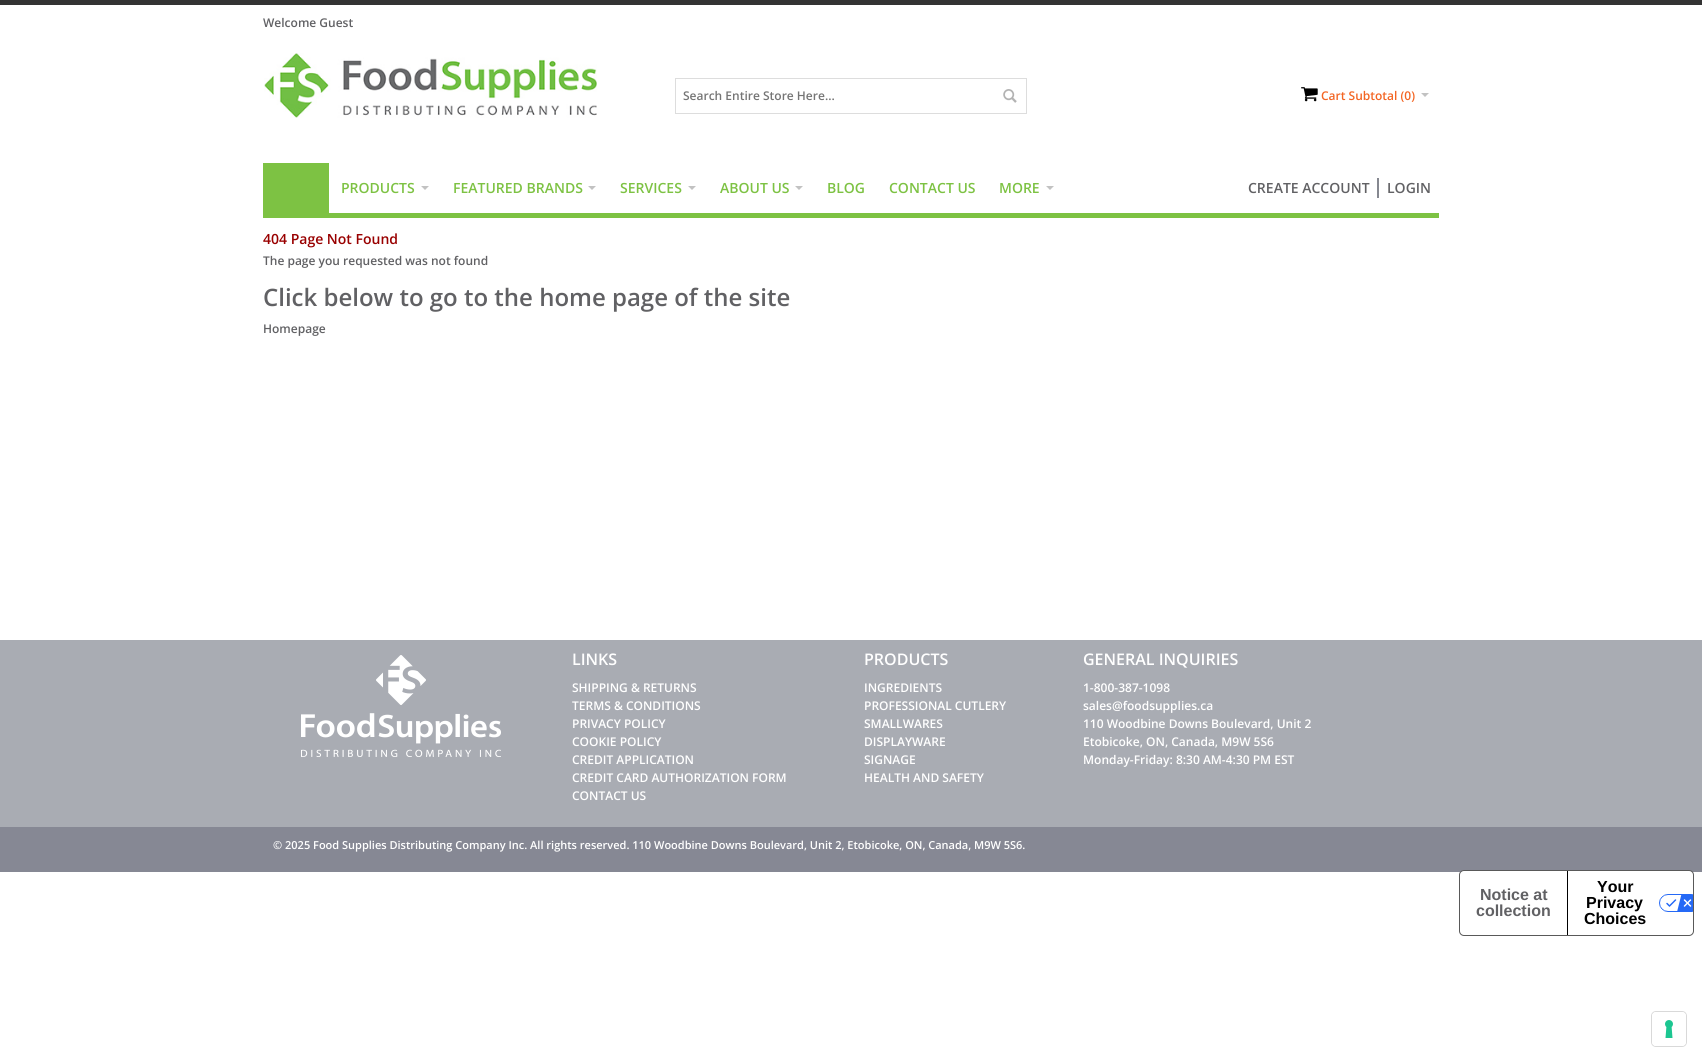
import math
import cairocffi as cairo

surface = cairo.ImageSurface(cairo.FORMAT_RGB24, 1702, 1062)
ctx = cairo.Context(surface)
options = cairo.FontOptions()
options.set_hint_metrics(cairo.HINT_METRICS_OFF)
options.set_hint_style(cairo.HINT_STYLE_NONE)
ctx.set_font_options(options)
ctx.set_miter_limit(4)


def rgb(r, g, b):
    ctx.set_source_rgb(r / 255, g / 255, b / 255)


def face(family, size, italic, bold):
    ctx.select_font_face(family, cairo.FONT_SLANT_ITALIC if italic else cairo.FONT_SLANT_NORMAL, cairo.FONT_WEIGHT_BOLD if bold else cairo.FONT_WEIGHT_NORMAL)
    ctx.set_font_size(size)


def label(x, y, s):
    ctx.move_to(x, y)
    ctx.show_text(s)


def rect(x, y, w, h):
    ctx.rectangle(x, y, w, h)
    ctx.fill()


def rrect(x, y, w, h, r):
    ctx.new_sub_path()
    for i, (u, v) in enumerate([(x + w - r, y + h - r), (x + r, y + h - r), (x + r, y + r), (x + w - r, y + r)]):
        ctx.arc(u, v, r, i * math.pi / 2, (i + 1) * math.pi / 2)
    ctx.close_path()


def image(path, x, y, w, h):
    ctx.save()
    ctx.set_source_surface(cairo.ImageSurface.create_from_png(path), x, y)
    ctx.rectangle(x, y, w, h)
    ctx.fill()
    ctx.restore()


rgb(255, 255, 255)
ctx.paint()
rgb(51, 51, 51)
rect(0, 0, 1702, 5)
face('Open Sans SemiBold', 12, 0, 0)
rgb(97, 97, 100)
label(263, 27, 'Welcome Guest')
image('image0.png', 264, 53, 333, 65)
ctx.rectangle(675.5, 78.5, 351, 35)
rgb(221, 221, 221)
ctx.set_line_width(1)
ctx.stroke()
rgb(117, 117, 117)
label(683, 100, 'Search Entire Store Here...')
image('image1.png', 1003, 89, 14, 14)
image('image2.png', 1301, 87, 17, 15)
rgb(243, 101, 35)
label(1321, 100, 'Cart Subtotal (0)')
rgb(194, 194, 194)
ctx.new_path()
ctx.move_to(1421, 93)
ctx.line_to(1429, 93)
ctx.line_to(1425, 97)
ctx.close_path()
ctx.fill()
rgb(125, 194, 67)
rect(263, 213, 1176, 5)
rect(263, 163, 66, 50)
face('Open Sans SemiBold', 14, 0, 0)
label(341, 193, 'PRODUCTS')
rgb(194, 194, 194)
ctx.new_path()
ctx.move_to(421, 186)
ctx.line_to(429, 186)
ctx.line_to(425, 190)
ctx.close_path()
ctx.fill()
rgb(125, 194, 67)
label(453, 193, 'FEATURED BRANDS')
rgb(194, 194, 194)
ctx.new_path()
ctx.move_to(588, 186)
ctx.line_to(596, 186)
ctx.line_to(592, 190)
ctx.close_path()
ctx.fill()
rgb(125, 194, 67)
label(620, 193, 'SERVICES')
rgb(194, 194, 194)
ctx.new_path()
ctx.move_to(688, 186)
ctx.line_to(696, 186)
ctx.line_to(692, 190)
ctx.close_path()
ctx.fill()
rgb(125, 194, 67)
label(720, 193, 'ABOUT US')
rgb(194, 194, 194)
ctx.new_path()
ctx.move_to(795, 186)
ctx.line_to(803, 186)
ctx.line_to(799, 190)
ctx.close_path()
ctx.fill()
rgb(125, 194, 67)
label(827, 193, 'BLOG')
label(889, 193, 'CONTACT US')
label(999, 193, 'MORE')
rgb(194, 194, 194)
ctx.new_path()
ctx.move_to(1046, 186)
ctx.line_to(1054, 186)
ctx.line_to(1050, 190)
ctx.close_path()
ctx.fill()
rgb(97, 97, 100)
label(1248, 193, 'CREATE ACCOUNT')
rgb(134, 136, 144)
rect(1377, 178, 2, 20)
rgb(97, 97, 100)
label(1387, 193, 'LOGIN')
rgb(153, 0, 0)
label(263, 244, '404 Page Not Found')
face('Open Sans SemiBold', 12, 0, 0)
rgb(97, 97, 100)
label(263, 265, 'The page you requested was not found')
face('Open Sans SemiBold', 24, 0, 0)
label(263, 306, 'Click below to go to the home page of the site')
face('Open Sans SemiBold', 12, 0, 0)
label(263, 333, 'Homepage')
rgb(169, 172, 179)
rect(0, 640, 1702, 187)
image('image3.png', 301, 655, 200, 102)
face('Open Sans SemiBold', 16, 0, 0)
rgb(255, 255, 255)
label(572, 665, 'LINKS')
face('Open Sans SemiBold', 12, 0, 0)
label(572, 692, 'SHIPPING & RETURNS')
label(572, 710, 'TERMS & CONDITIONS')
label(572, 728, 'PRIVACY POLICY')
label(572, 746, 'COOKIE POLICY')
label(572, 764, 'CREDIT APPLICATION')
label(572, 782, 'CREDIT CARD AUTHORIZATION FORM')
label(572, 800, 'CONTACT US')
face('Open Sans SemiBold', 16, 0, 0)
label(864, 665, 'PRODUCTS')
face('Open Sans SemiBold', 12, 0, 0)
label(864, 692, 'INGREDIENTS')
label(864, 710, 'PROFESSIONAL CUTLERY')
label(864, 728, 'SMALLWARES')
label(864, 746, 'DISPLAYWARE')
label(864, 764, 'SIGNAGE')
label(864, 782, 'HEALTH AND SAFETY')
face('Open Sans SemiBold', 16, 0, 0)
label(1083, 665, 'GENERAL INQUIRIES')
face('Open Sans SemiBold', 12, 0, 0)
label(1083, 692, '1-800-387-1098')
label(1083, 710, 'sales@foodsupplies.ca')
label(1083, 728, '110 Woodbine Downs Boulevard, Unit 2')
label(1083, 746, 'Etobicoke, ON, Canada, M9W 5S6')
label(1083, 764, 'Monday-Friday: 8:30 AM-4:30 PM EST')
rgb(134, 136, 148)
rect(0, 827, 1702, 45)
face('Open Sans SemiBold', 11, 0, 0)
rgb(255, 255, 255)
label(273, 849, '© 2025 Food Supplies Distributing Company Inc. All rights reserved. 110 Woodbine Downs Boulevard, Unit 2, Etobicoke, ON, Canada, M9W 5S6.')
rrect(1459.5, 870.5, 234, 65, 4.5)
ctx.fill_preserve()
rgb(89, 89, 89)
ctx.stroke()
face('Liberation Sans', 16, 0, 1)
rgb(97, 97, 100)
label(1480, 900, 'Notice at')
label(1476, 916, 'collection')
rgb(0, 0, 0)
rect(1567, 871, 1, 64)
label(1597, 892, 'Your')
label(1586, 908, 'Privacy')
image('image4.png', 1659, 894, 34, 18)
label(1584, 924, 'Choices')
rrect(1651.5, 1011.5, 35, 35, 4.5)
rgb(217, 217, 217)
ctx.stroke()
rgb(255, 255, 255)
rrect(1652, 1012, 34, 34, 4)
ctx.fill()
image('image5.png', 1665, 1020, 8, 18)
surface.write_to_png('render.png')
